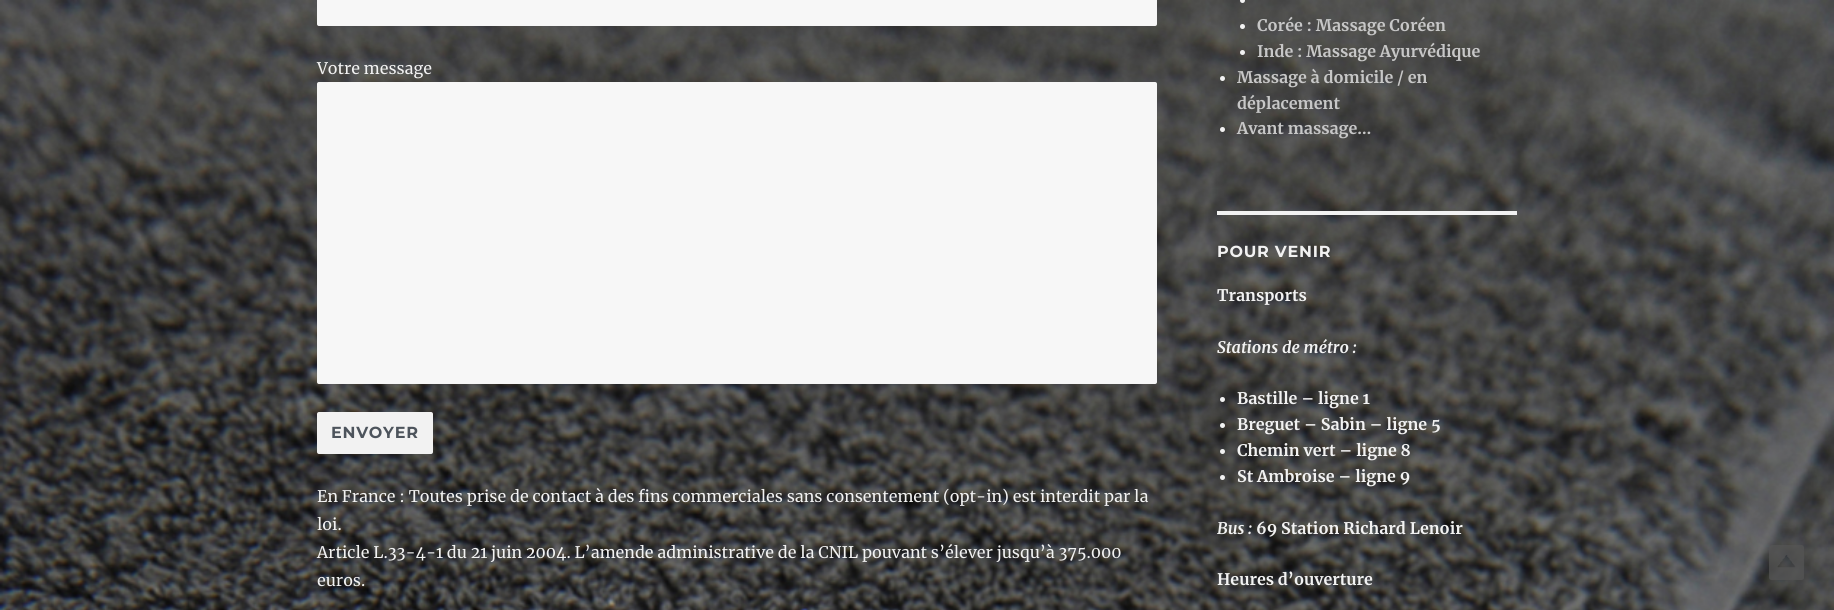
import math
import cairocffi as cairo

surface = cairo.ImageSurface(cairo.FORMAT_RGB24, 1834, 610)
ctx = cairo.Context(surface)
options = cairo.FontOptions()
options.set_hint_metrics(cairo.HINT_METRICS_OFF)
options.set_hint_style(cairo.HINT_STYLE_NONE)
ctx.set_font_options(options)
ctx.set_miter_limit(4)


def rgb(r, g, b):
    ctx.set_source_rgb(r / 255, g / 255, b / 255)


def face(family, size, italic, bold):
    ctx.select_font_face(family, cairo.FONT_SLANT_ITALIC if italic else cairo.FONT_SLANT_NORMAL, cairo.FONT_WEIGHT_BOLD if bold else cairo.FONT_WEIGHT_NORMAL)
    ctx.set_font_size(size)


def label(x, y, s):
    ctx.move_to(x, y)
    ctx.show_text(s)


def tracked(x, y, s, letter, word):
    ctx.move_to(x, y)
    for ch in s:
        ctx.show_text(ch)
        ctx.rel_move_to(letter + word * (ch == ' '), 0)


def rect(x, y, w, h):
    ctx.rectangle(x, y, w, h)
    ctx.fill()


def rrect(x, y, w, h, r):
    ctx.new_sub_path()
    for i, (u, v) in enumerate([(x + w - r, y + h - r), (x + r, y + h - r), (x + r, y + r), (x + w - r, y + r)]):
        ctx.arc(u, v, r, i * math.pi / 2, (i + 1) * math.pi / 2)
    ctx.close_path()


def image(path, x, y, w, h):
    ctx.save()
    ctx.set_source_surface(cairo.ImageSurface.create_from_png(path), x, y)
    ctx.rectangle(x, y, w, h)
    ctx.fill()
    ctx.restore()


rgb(255, 255, 255)
ctx.paint()
image('image0.png', 0, 0, 1834, 610)
rgb(247, 247, 247)
rrect(317, -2, 840, 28, 2)
ctx.fill()
rrect(317.5, -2.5, 839, 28, 1.5)
ctx.set_source_rgba(0.949, 0.949, 0.949, 0.2)
ctx.set_line_width(1)
ctx.stroke()
face('Merriweather', 16, 0, 0)
rgb(242, 242, 242)
label(317, 74, 'Votre message')
rgb(247, 247, 247)
rrect(317, 82, 840, 302, 2)
ctx.fill()
rrect(317.5, 82.5, 839, 301, 1.5)
ctx.set_source_rgba(0.949, 0.949, 0.949, 0.2)
ctx.stroke()
rgb(242, 242, 242)
rrect(317, 412, 116, 42, 2)
ctx.fill()
face('Montserrat Thin', 16, 0, 0)
rgb(77, 84, 92)
tracked(331, 438, 'ENVOYER', 0.75, 0)
face('Merriweather', 16, 0, 0)
rgb(242, 242, 242)
label(317, 502, 'En France : Toutes prise de contact à des fins commerciales sans consentement (opt-in) est interdit par la')
label(317, 530, 'loi.')
label(317, 558, 'Article L.33-4-1 du 21 juin 2004. L’amende administrative de la CNIL pouvant s’élever jusqu’à 375.000')
label(317, 586, 'euros.')
ctx.new_path()
ctx.arc(1242.5, 0.5, 2.5, 0, 2 * math.pi)
ctx.fill()
ctx.arc(1242.5, 26.5, 2.5, 0, 2 * math.pi)
ctx.fill()
face('Merriweather', 16, 0, 1)
rgb(199, 199, 199)
label(1257, 31, 'Corée : Massage Coréen')
rgb(242, 242, 242)
ctx.new_path()
ctx.arc(1242.5, 52.5, 2.5, 0, 2 * math.pi)
ctx.fill()
rgb(199, 199, 199)
label(1257, 57, 'Inde : Massage Ayurvédique')
rgb(242, 242, 242)
ctx.new_path()
ctx.arc(1222.5, 78.5, 2.5, 0, 2 * math.pi)
ctx.fill()
rgb(199, 199, 199)
label(1237, 83, 'Massage à domicile / en')
label(1237, 109, 'déplacement')
rgb(242, 242, 242)
ctx.new_path()
ctx.arc(1222.5, 129.5, 2.5, 0, 2 * math.pi)
ctx.fill()
rgb(199, 199, 199)
label(1237, 134, 'Avant massage…')
rgb(242, 242, 242)
rect(1217, 211, 300, 4)
face('Montserrat Thin', 16, 0, 0)
tracked(1217, 257, 'POUR VENIR', 0.75, 0)
face('Merriweather', 16, 0, 1)
label(1217, 301, 'Transports')
face('Merriweather', 16, 1, 1)
label(1217, 353, 'Stations de métro :')
ctx.new_path()
ctx.arc(1222.5, 399.5, 2.5, 0, 2 * math.pi)
ctx.fill()
face('Merriweather', 16, 0, 1)
label(1237, 404, 'Bastille – ligne 1')
ctx.new_path()
ctx.arc(1222.5, 425.5, 2.5, 0, 2 * math.pi)
ctx.fill()
label(1237, 430, 'Breguet – Sabin – ligne 5')
ctx.new_path()
ctx.arc(1222.5, 451.5, 2.5, 0, 2 * math.pi)
ctx.fill()
label(1237, 456, 'Chemin vert – ligne 8')
ctx.new_path()
ctx.arc(1222.5, 477.5, 2.5, 0, 2 * math.pi)
ctx.fill()
label(1237, 482, 'St Ambroise – ligne 9')
face('Merriweather', 16, 1, 1)
label(1217, 534, 'Bus :')
face('Merriweather', 16, 0, 1)
label(1256, 534, '69 Station Richard Lenoir')
label(1217, 585, 'Heures d’ouverture')
image('image1.png', 1769, 545, 35, 35)
surface.write_to_png('render.png')
